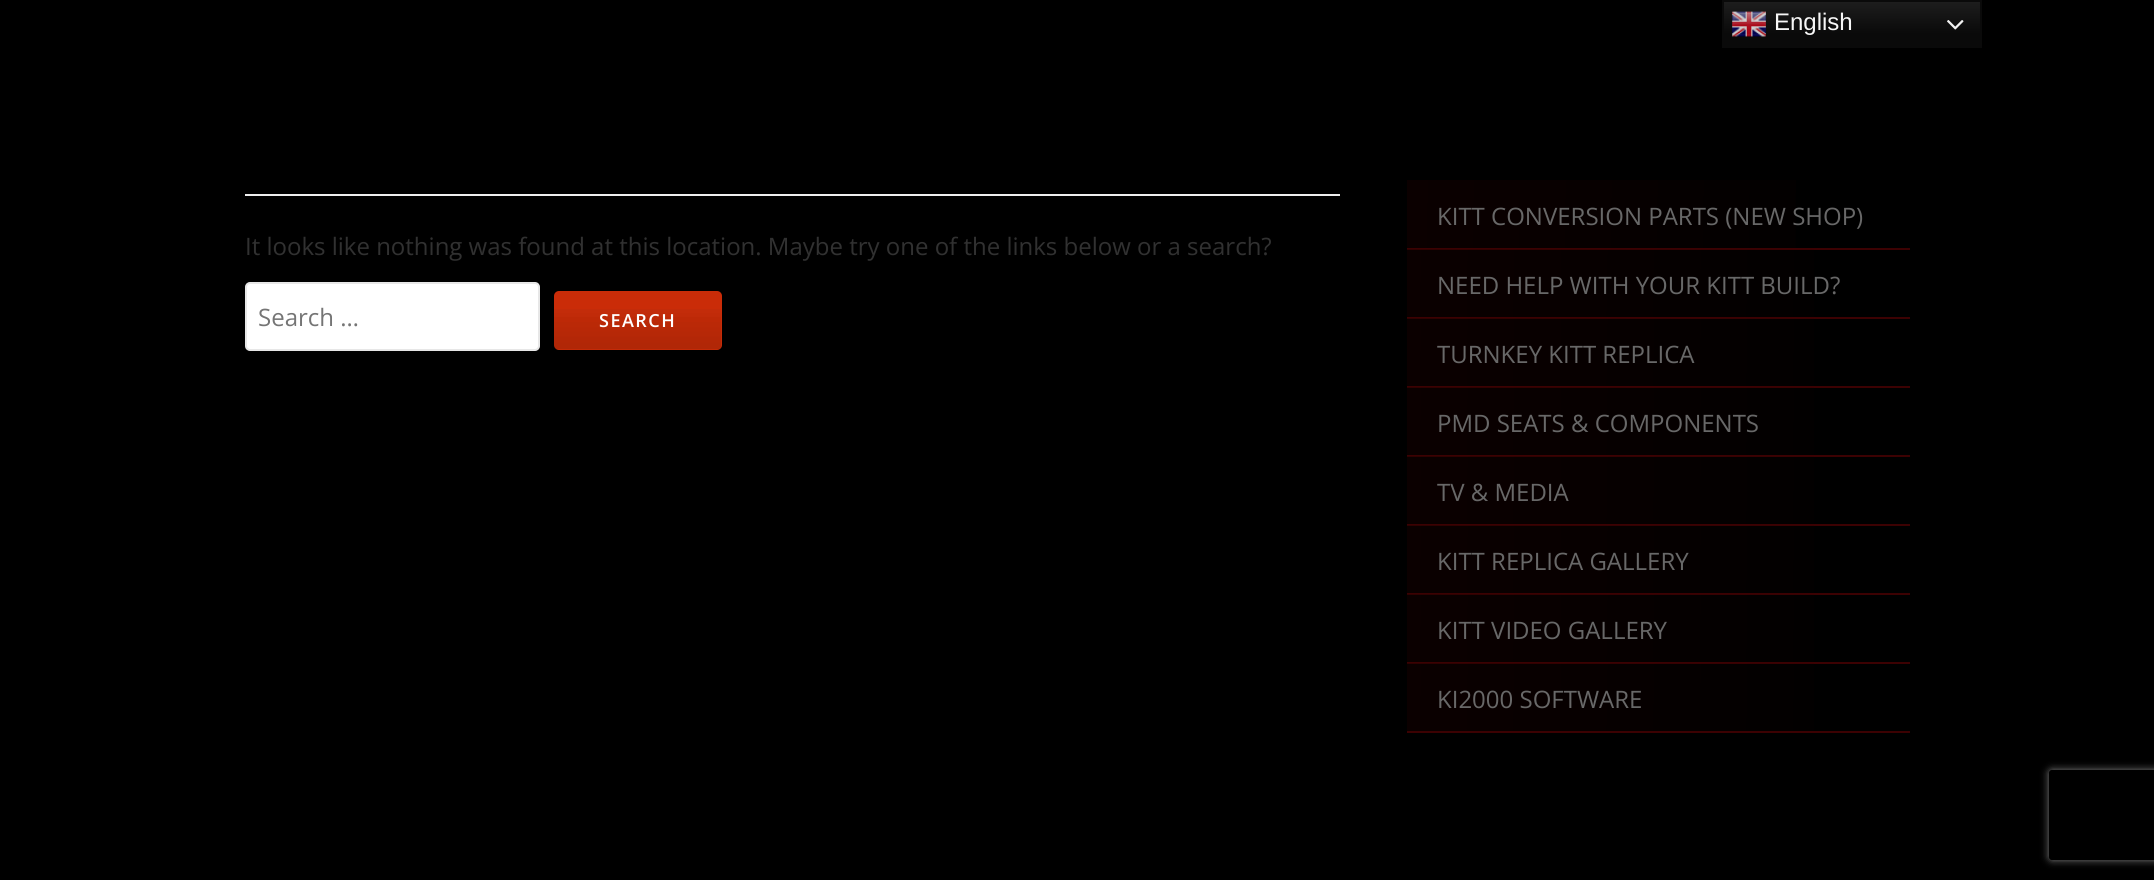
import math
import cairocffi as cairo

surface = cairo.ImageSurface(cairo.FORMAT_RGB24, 2154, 880)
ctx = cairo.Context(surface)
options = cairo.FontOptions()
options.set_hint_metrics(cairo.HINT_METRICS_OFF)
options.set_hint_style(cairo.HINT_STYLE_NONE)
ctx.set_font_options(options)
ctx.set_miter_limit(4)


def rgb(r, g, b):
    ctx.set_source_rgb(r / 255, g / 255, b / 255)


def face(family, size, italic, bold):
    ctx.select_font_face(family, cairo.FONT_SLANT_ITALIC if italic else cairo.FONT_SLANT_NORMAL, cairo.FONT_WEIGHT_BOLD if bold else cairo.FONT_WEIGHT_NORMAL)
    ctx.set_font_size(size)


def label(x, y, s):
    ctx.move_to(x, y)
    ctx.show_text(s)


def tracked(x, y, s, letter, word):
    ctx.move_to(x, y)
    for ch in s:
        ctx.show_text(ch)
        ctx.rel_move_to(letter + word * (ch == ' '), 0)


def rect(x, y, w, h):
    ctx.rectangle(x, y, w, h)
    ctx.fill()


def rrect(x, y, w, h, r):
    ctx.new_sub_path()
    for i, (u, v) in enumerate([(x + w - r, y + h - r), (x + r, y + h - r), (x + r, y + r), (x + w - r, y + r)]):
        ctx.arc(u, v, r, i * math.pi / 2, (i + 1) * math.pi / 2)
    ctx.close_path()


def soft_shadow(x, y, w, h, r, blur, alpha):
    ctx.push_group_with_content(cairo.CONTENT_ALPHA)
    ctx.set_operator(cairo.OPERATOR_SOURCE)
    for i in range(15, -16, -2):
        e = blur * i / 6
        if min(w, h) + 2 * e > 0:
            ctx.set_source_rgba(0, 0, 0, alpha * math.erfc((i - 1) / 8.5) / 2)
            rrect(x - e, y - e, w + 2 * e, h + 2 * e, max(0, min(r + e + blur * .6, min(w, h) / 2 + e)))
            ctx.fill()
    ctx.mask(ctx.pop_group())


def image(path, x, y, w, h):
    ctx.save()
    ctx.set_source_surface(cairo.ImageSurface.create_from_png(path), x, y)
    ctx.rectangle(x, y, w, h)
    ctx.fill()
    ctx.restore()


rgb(0, 0, 0)
ctx.paint()
gradient = cairo.LinearGradient(1852, 0, 1852, 48)
gradient.add_color_stop_rgba(0, 0.118, 0.118, 0.118, 1)
gradient.add_color_stop_rgba(0.7, 0.039, 0.039, 0.039, 1)
ctx.set_source(gradient)
rect(1724, 2, 256, 44)
ctx.rectangle(1723, 1, 258, 46)
rgb(10, 10, 10)
ctx.stroke()
image('image0.png', 1732, 11, 34, 26)
face('Liberation Sans', 24, 0, 0)
rgb(247, 247, 247)
label(1774, 30, 'English')
image('image1.png', 1947, 20, 17, 10)
rgb(238, 238, 238)
rect(245, 194, 1095, 2)
face('Open Sans', 24, 0, 0)
rgb(49, 49, 49)
label(245, 255, 'It looks like nothing was found at this location. Maybe try one of the links below or a search?')
rgb(255, 255, 255)
rrect(246, 283, 293, 67, 4)
ctx.fill_preserve()
rgb(231, 231, 231)
ctx.stroke()
rgb(117, 117, 117)
label(258, 326, 'Search …')
rgb(202, 44, 8)
rrect(554, 291, 168, 59, 5)
ctx.fill()
image('image2.png', 554, 309, 168, 41)
face('Open Sans SemiBold', 18, 0, 0)
rgb(255, 255, 255)
tracked(599, 327, 'SEARCH', 1.5, 0)
gradient = cairo.LinearGradient(1406, 209, 1910, 218)
gradient.add_color_stop_rgba(0, 0.043, 0, 0, 1)
gradient.add_color_stop_rgba(1, 0, 0, 0, 1)
ctx.set_source(gradient)
rect(1407, 180, 389, 68)
rgb(60, 1, 2)
rect(1407, 248, 503, 2)
face('Open Sans', 24, 0, 0)
rgb(104, 104, 104)
label(1437, 225, 'KITT CONVERSION PARTS (NEW SHOP)')
gradient = cairo.LinearGradient(1406, 278, 1910, 287)
gradient.add_color_stop_rgba(0, 0.106, 0.004, 0.004, 0.4)
gradient.add_color_stop_rgba(1, 0.106, 0.004, 0.004, 0)
ctx.set_source(gradient)
rect(1407, 249, 407, 68)
rgb(60, 1, 2)
rect(1407, 317, 503, 2)
rgb(104, 104, 104)
label(1437, 294, 'NEED HELP WITH YOUR KITT BUILD?')
gradient = cairo.LinearGradient(1406, 347, 1910, 356)
gradient.add_color_stop_rgba(0, 0.106, 0.004, 0.004, 0.4)
gradient.add_color_stop_rgba(1, 0.106, 0.004, 0.004, 0)
ctx.set_source(gradient)
rect(1407, 318, 407, 68)
rgb(60, 1, 2)
rect(1407, 386, 503, 2)
rgb(104, 104, 104)
label(1437, 363, 'TURNKEY KITT REPLICA')
gradient = cairo.LinearGradient(1406, 416, 1910, 425)
gradient.add_color_stop_rgba(0, 0.106, 0.004, 0.004, 0.4)
gradient.add_color_stop_rgba(1, 0.106, 0.004, 0.004, 0)
ctx.set_source(gradient)
rect(1407, 387, 407, 68)
rgb(60, 1, 2)
rect(1407, 455, 503, 2)
rgb(104, 104, 104)
label(1437, 432, 'PMD SEATS & COMPONENTS')
gradient = cairo.LinearGradient(1406, 485, 1910, 494)
gradient.add_color_stop_rgba(0, 0.106, 0.004, 0.004, 0.4)
gradient.add_color_stop_rgba(1, 0.106, 0.004, 0.004, 0)
ctx.set_source(gradient)
rect(1407, 456, 407, 68)
rgb(60, 1, 2)
rect(1407, 524, 503, 2)
rgb(104, 104, 104)
label(1437, 501, 'TV & MEDIA')
gradient = cairo.LinearGradient(1406, 554, 1910, 563)
gradient.add_color_stop_rgba(0, 0.106, 0.004, 0.004, 0.4)
gradient.add_color_stop_rgba(1, 0.106, 0.004, 0.004, 0)
ctx.set_source(gradient)
rect(1407, 525, 407, 68)
rgb(60, 1, 2)
rect(1407, 593, 503, 2)
rgb(104, 104, 104)
label(1437, 570, 'KITT REPLICA GALLERY')
gradient = cairo.LinearGradient(1406, 623, 1910, 632)
gradient.add_color_stop_rgba(0, 0.106, 0.004, 0.004, 0.4)
gradient.add_color_stop_rgba(1, 0.106, 0.004, 0.004, 0)
ctx.set_source(gradient)
rect(1407, 594, 407, 68)
rgb(60, 1, 2)
rect(1407, 662, 503, 2)
rgb(104, 104, 104)
label(1437, 639, 'KITT VIDEO GALLERY')
gradient = cairo.LinearGradient(1406, 692, 1910, 701)
gradient.add_color_stop_rgba(0, 0.106, 0.004, 0.004, 0.4)
gradient.add_color_stop_rgba(1, 0.106, 0.004, 0.004, 0)
ctx.set_source(gradient)
rect(1407, 663, 407, 68)
rgb(60, 1, 2)
rect(1407, 731, 503, 2)
rgb(104, 104, 104)
label(1437, 708, 'KI2000 SOFTWARE')
ctx.save()
ctx.set_fill_rule(cairo.FILL_RULE_EVEN_ODD)
ctx.new_path()
ctx.move_to(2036, 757)
ctx.line_to(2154, 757)
ctx.line_to(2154, 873)
ctx.line_to(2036, 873)
ctx.close_path()
ctx.move_to(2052, 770)
ctx.line_to(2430, 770)
ctx.curve_to(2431.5, 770, 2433, 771.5, 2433, 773)
ctx.line_to(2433, 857)
ctx.curve_to(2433, 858.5, 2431.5, 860, 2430, 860)
ctx.line_to(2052, 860)
ctx.curve_to(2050.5, 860, 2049, 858.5, 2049, 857)
ctx.line_to(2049, 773)
ctx.curve_to(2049, 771.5, 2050.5, 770, 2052, 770)
ctx.close_path()
ctx.clip()
rgb(128, 128, 128)
soft_shadow(2049, 770, 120, 90, 3, 4, 1)
ctx.restore()
surface.write_to_png('render.png')
